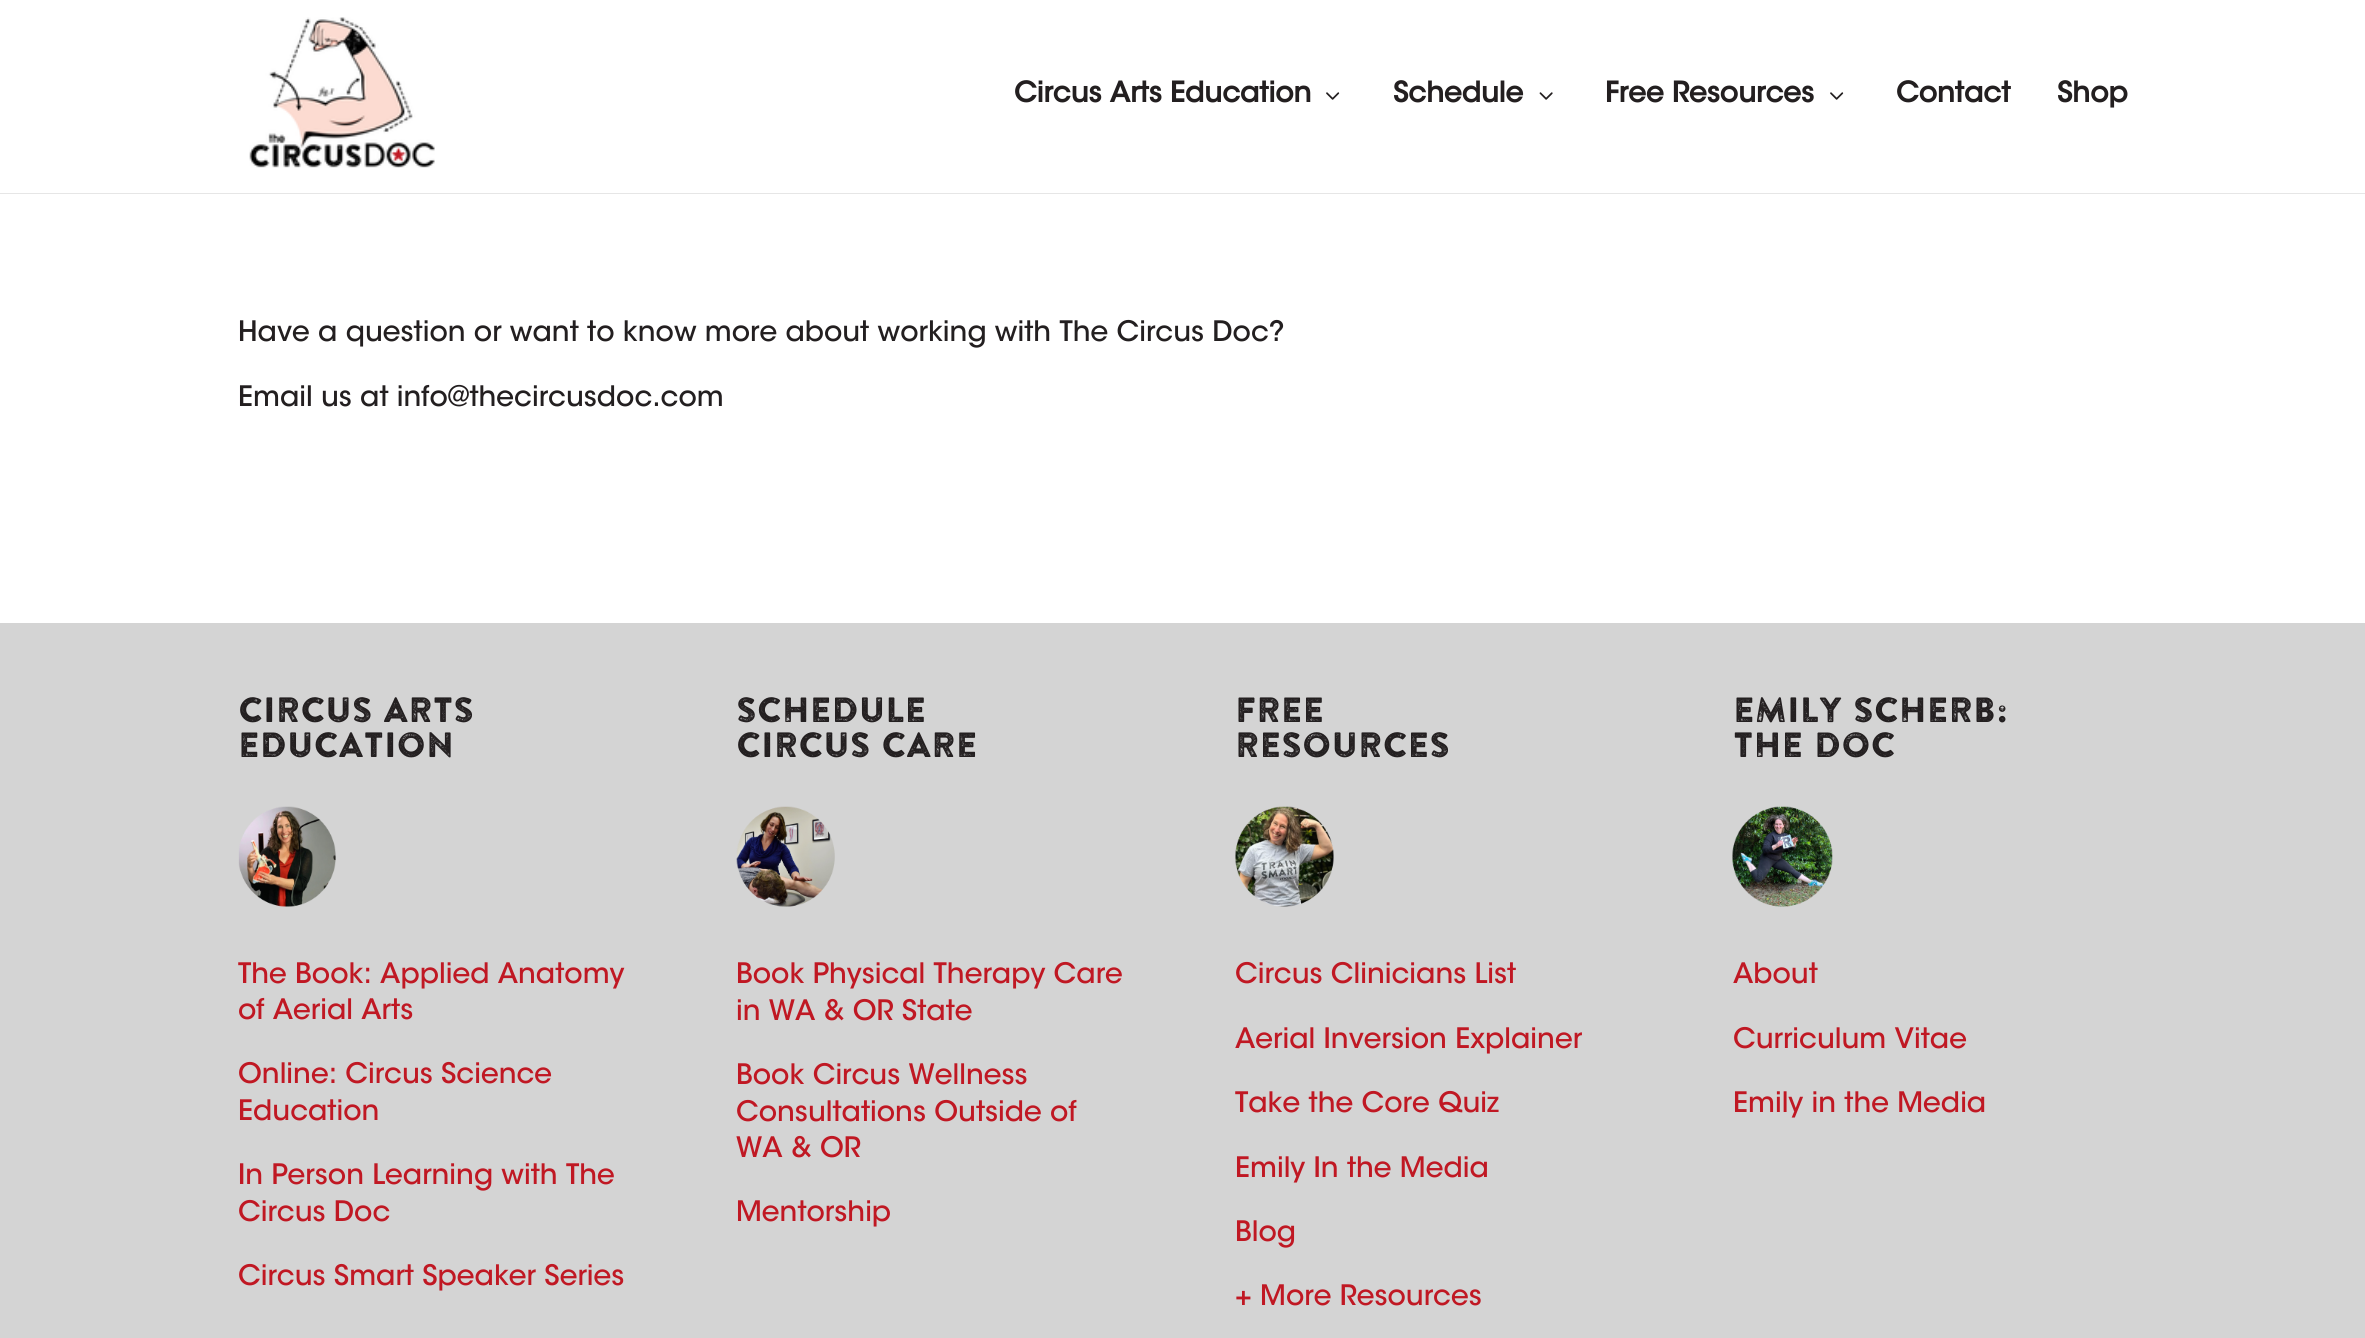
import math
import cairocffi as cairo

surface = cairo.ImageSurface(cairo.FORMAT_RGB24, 2365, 1338)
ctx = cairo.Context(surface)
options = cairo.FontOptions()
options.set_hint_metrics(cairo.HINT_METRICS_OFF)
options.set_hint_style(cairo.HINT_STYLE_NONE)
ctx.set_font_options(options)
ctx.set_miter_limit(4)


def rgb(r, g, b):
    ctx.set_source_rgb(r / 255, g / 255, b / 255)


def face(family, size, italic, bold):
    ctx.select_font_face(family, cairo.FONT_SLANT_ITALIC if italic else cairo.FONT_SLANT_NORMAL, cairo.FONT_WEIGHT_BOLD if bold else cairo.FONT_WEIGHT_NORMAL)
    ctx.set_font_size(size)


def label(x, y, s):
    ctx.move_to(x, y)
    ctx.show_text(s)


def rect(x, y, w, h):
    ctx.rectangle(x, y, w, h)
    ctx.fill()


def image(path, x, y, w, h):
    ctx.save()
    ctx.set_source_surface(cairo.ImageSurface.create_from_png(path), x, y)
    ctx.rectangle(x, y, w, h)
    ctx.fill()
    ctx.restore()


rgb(255, 255, 255)
ctx.paint()
rgb(230, 230, 230)
rect(0, 193, 2365, 1)
image('image0.png', 249, 17, 186, 151)
face('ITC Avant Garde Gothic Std', 28, 0, 1)
rgb(35, 31, 32)
label(1014, 102, 'Circus Arts Education')
image('image1.png', 1326, 92, 14, 8)
label(1393, 102, 'Schedule')
image('image2.png', 1539, 92, 14, 8)
label(1605, 102, 'Free Resources')
image('image1.png', 1830, 92, 14, 8)
label(1896, 102, 'Contact')
label(2057, 102, 'Shop')
face('ITC Avant Garde Gothic Std Medium', 28, 0, 0)
label(238, 341, 'Have a question or want to know more about working with The Circus Doc?')
label(238, 406, 'Email us at info@thecircusdoc.com')
rgb(212, 212, 212)
rect(0, 623, 2365, 715)
face('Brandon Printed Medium', 35, 0, 0)
rgb(35, 31, 32)
label(238, 722, 'CIRCUS ARTS')
label(238, 757, 'EDUCATION')
image('image3.png', 238, 806, 98, 101)
face('ITC Avant Garde Gothic Std Medium', 28, 0, 0)
rgb(192, 24, 35)
label(238, 983, 'The Book: Applied Anatomy')
label(238, 1019, 'of Aerial Arts')
label(238, 1083, 'Online: Circus Science')
label(238, 1120, 'Education')
label(238, 1184, 'In Person Learning with The')
label(238, 1221, 'Circus Doc')
label(238, 1285, 'Circus Smart Speaker Series')
face('Brandon Printed Medium', 35, 0, 0)
rgb(35, 31, 32)
label(736, 722, 'SCHEDULE')
label(736, 757, 'CIRCUS CARE')
image('image4.png', 736, 806, 99, 101)
face('ITC Avant Garde Gothic Std Medium', 28, 0, 0)
rgb(192, 24, 35)
label(736, 983, 'Book Physical Therapy Care')
label(736, 1020, 'in WA & OR State')
label(736, 1084, 'Book Circus Wellness')
label(736, 1121, 'Consultations Outside of')
label(736, 1157, 'WA & OR')
label(736, 1221, 'Mentorship')
face('Brandon Printed Medium', 35, 0, 0)
rgb(35, 31, 32)
label(1235, 722, 'FREE')
label(1235, 757, 'RESOURCES')
image('image5.png', 1235, 806, 99, 101)
face('ITC Avant Garde Gothic Std Medium', 28, 0, 0)
rgb(192, 24, 35)
label(1235, 983, 'Circus Clinicians List')
label(1235, 1048, 'Aerial Inversion Explainer')
label(1235, 1112, 'Take the Core Quiz')
label(1235, 1177, 'Emily In the Media')
label(1235, 1241, 'Blog')
label(1235, 1305, '+ More Resources')
face('Brandon Printed Medium', 35, 0, 0)
rgb(35, 31, 32)
label(1733, 722, 'EMILY SCHERB:')
label(1733, 757, 'THE DOC')
image('image6.png', 1732, 806, 101, 101)
face('ITC Avant Garde Gothic Std Medium', 28, 0, 0)
rgb(192, 24, 35)
label(1733, 983, 'About')
label(1733, 1048, 'Curriculum Vitae')
label(1733, 1112, 'Emily in the Media')
surface.write_to_png('render.png')
